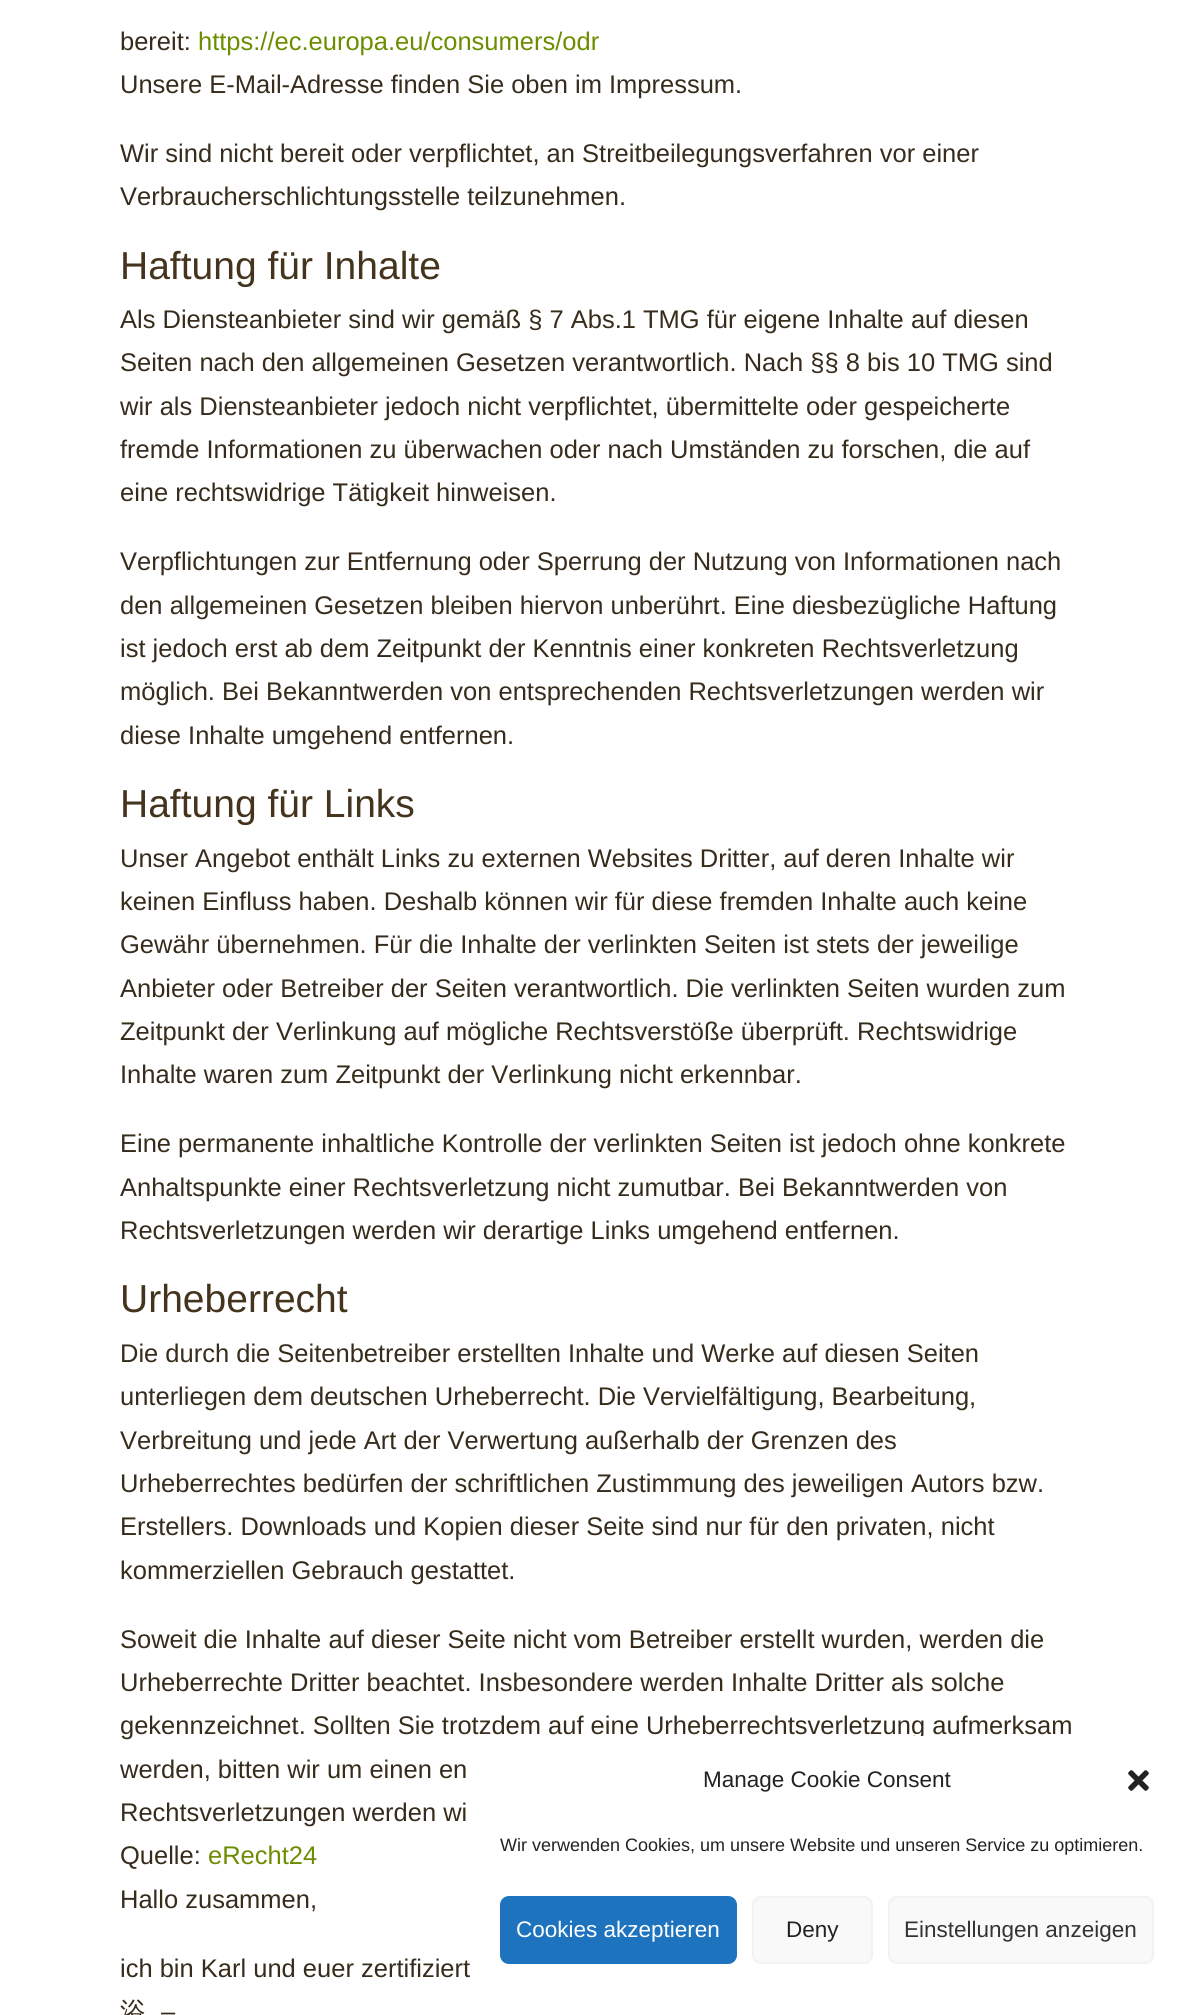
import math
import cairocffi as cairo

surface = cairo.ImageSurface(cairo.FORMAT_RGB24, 1198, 2015)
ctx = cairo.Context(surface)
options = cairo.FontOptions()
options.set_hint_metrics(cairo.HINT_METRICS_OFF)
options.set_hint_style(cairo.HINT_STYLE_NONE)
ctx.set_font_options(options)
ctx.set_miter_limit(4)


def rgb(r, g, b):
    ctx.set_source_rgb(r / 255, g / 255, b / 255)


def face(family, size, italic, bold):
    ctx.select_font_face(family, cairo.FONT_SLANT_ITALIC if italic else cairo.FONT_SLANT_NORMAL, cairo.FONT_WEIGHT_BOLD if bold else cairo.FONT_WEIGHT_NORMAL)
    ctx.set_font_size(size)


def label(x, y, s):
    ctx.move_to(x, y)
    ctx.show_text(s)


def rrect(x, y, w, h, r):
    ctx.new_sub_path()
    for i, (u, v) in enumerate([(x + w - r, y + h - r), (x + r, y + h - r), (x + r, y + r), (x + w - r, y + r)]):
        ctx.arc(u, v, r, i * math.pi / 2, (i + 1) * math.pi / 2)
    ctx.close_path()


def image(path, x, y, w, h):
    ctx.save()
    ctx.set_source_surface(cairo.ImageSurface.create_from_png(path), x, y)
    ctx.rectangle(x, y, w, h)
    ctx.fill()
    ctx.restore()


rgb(255, 255, 255)
ctx.paint()
face('Liberation Sans', 25.5, 0, 0)
rgb(55, 44, 28)
label(120, 50, 'bereit:')
rgb(107, 142, 0)
label(198, 50, 'https://ec.europa.eu/consumers/odr')
rgb(55, 44, 28)
label(120, 93, 'Unsere E-Mail-Adresse finden Sie oben im Impressum.')
label(120, 162, 'Wir sind nicht bereit oder verpflichtet, an Streitbeilegungsverfahren vor einer')
label(120, 205, 'Verbraucherschlichtungsstelle teilzunehmen.')
face('Liberation Sans', 39, 0, 0)
rgb(68, 52, 30)
label(120, 279, 'Haftung für Inhalte')
face('Liberation Sans', 25.5, 0, 0)
rgb(55, 44, 28)
label(120, 328, 'Als Diensteanbieter sind wir gemäß § 7 Abs.1 TMG für eigene Inhalte auf diesen')
label(120, 371, 'Seiten nach den allgemeinen Gesetzen verantwortlich. Nach §§ 8 bis 10 TMG sind')
label(120, 415, 'wir als Diensteanbieter jedoch nicht verpflichtet, übermittelte oder gespeicherte')
label(120, 458, 'fremde Informationen zu überwachen oder nach Umständen zu forschen, die auf')
label(120, 501, 'eine rechtswidrige Tätigkeit hinweisen.')
label(120, 570, 'Verpflichtungen zur Entfernung oder Sperrung der Nutzung von Informationen nach')
label(120, 614, 'den allgemeinen Gesetzen bleiben hiervon unberührt. Eine diesbezügliche Haftung')
label(120, 657, 'ist jedoch erst ab dem Zeitpunkt der Kenntnis einer konkreten Rechtsverletzung')
label(120, 700, 'möglich. Bei Bekanntwerden von entsprechenden Rechtsverletzungen werden wir')
label(120, 744, 'diese Inhalte umgehend entfernen.')
face('Liberation Sans', 39, 0, 0)
rgb(68, 52, 30)
label(120, 817, 'Haftung für Links')
face('Liberation Sans', 25.5, 0, 0)
rgb(55, 44, 28)
label(120, 867, 'Unser Angebot enthält Links zu externen Websites Dritter, auf deren Inhalte wir')
label(120, 910, 'keinen Einfluss haben. Deshalb können wir für diese fremden Inhalte auch keine')
label(120, 953, 'Gewähr übernehmen. Für die Inhalte der verlinkten Seiten ist stets der jeweilige')
label(120, 997, 'Anbieter oder Betreiber der Seiten verantwortlich. Die verlinkten Seiten wurden zum')
label(120, 1040, 'Zeitpunkt der Verlinkung auf mögliche Rechtsverstöße überprüft. Rechtswidrige')
label(120, 1083, 'Inhalte waren zum Zeitpunkt der Verlinkung nicht erkennbar.')
label(120, 1152, 'Eine permanente inhaltliche Kontrolle der verlinkten Seiten ist jedoch ohne konkrete')
label(120, 1196, 'Anhaltspunkte einer Rechtsverletzung nicht zumutbar. Bei Bekanntwerden von')
label(120, 1239, 'Rechtsverletzungen werden wir derartige Links umgehend entfernen.')
face('Liberation Sans', 39, 0, 0)
rgb(68, 52, 30)
label(120, 1312, 'Urheberrecht')
face('Liberation Sans', 25.5, 0, 0)
rgb(55, 44, 28)
label(120, 1362, 'Die durch die Seitenbetreiber erstellten Inhalte und Werke auf diesen Seiten')
label(120, 1405, 'unterliegen dem deutschen Urheberrecht. Die Vervielfältigung, Bearbeitung,')
label(120, 1449, 'Verbreitung und jede Art der Verwertung außerhalb der Grenzen des')
label(120, 1492, 'Urheberrechtes bedürfen der schriftlichen Zustimmung des jeweiligen Autors bzw.')
label(120, 1535, 'Erstellers. Downloads und Kopien dieser Seite sind nur für den privaten, nicht')
label(120, 1579, 'kommerziellen Gebrauch gestattet.')
label(120, 1648, 'Soweit die Inhalte auf dieser Seite nicht vom Betreiber erstellt wurden, werden die')
label(120, 1691, 'Urheberrechte Dritter beachtet. Insbesondere werden Inhalte Dritter als solche')
label(120, 1734, 'gekennzeichnet. Sollten Sie trotzdem auf eine Urheberrechtsverletzung aufmerksam')
label(120, 1778, 'werden, bitten wir um einen en')
label(120, 1821, 'Rechtsverletzungen werden wi')
label(120, 1864, 'Quelle:')
rgb(107, 142, 0)
label(208, 1864, 'eRecht24')
rgb(55, 44, 28)
label(120, 1908, 'Hallo zusammen,')
label(120, 1977, 'ich bin Karl und euer zertifiziert')
face('WenQuanYi Zen Hei Medium', 25.5, 0, 0)
label(120, 2020, '浴')
face('Liberation Sans', 25.5, 0, 0)
label(161, 2020, '–')
rgb(255, 255, 255)
rrect(470, 1736, 714, 265, 18)
ctx.fill()
face('Liberation Sans', 22.5, 0, 0)
rgb(34, 34, 34)
label(703, 1787, 'Manage Cookie Consent')
image('image0.png', 1128, 1770, 21, 21)
face('Liberation Sans', 18, 0, 0)
label(500, 1851, 'Wir verwenden Cookies, um unsere Website und unseren Service zu optimieren.')
rgb(30, 115, 190)
rrect(501, 1897, 235, 66, 8)
ctx.fill_preserve()
ctx.stroke()
face('Liberation Sans', 22.5, 0, 0)
rgb(255, 255, 255)
label(516, 1937, 'Cookies akzeptieren')
rgb(249, 249, 249)
rrect(753, 1897, 119, 66, 8)
ctx.fill_preserve()
rgb(242, 242, 242)
ctx.stroke()
rgb(34, 34, 34)
label(786, 1937, 'Deny')
rgb(249, 249, 249)
rrect(889, 1897, 264, 66, 8)
ctx.fill_preserve()
rgb(242, 242, 242)
ctx.stroke()
rgb(51, 51, 51)
label(904, 1937, 'Einstellungen anzeigen')
surface.write_to_png('render.png')
